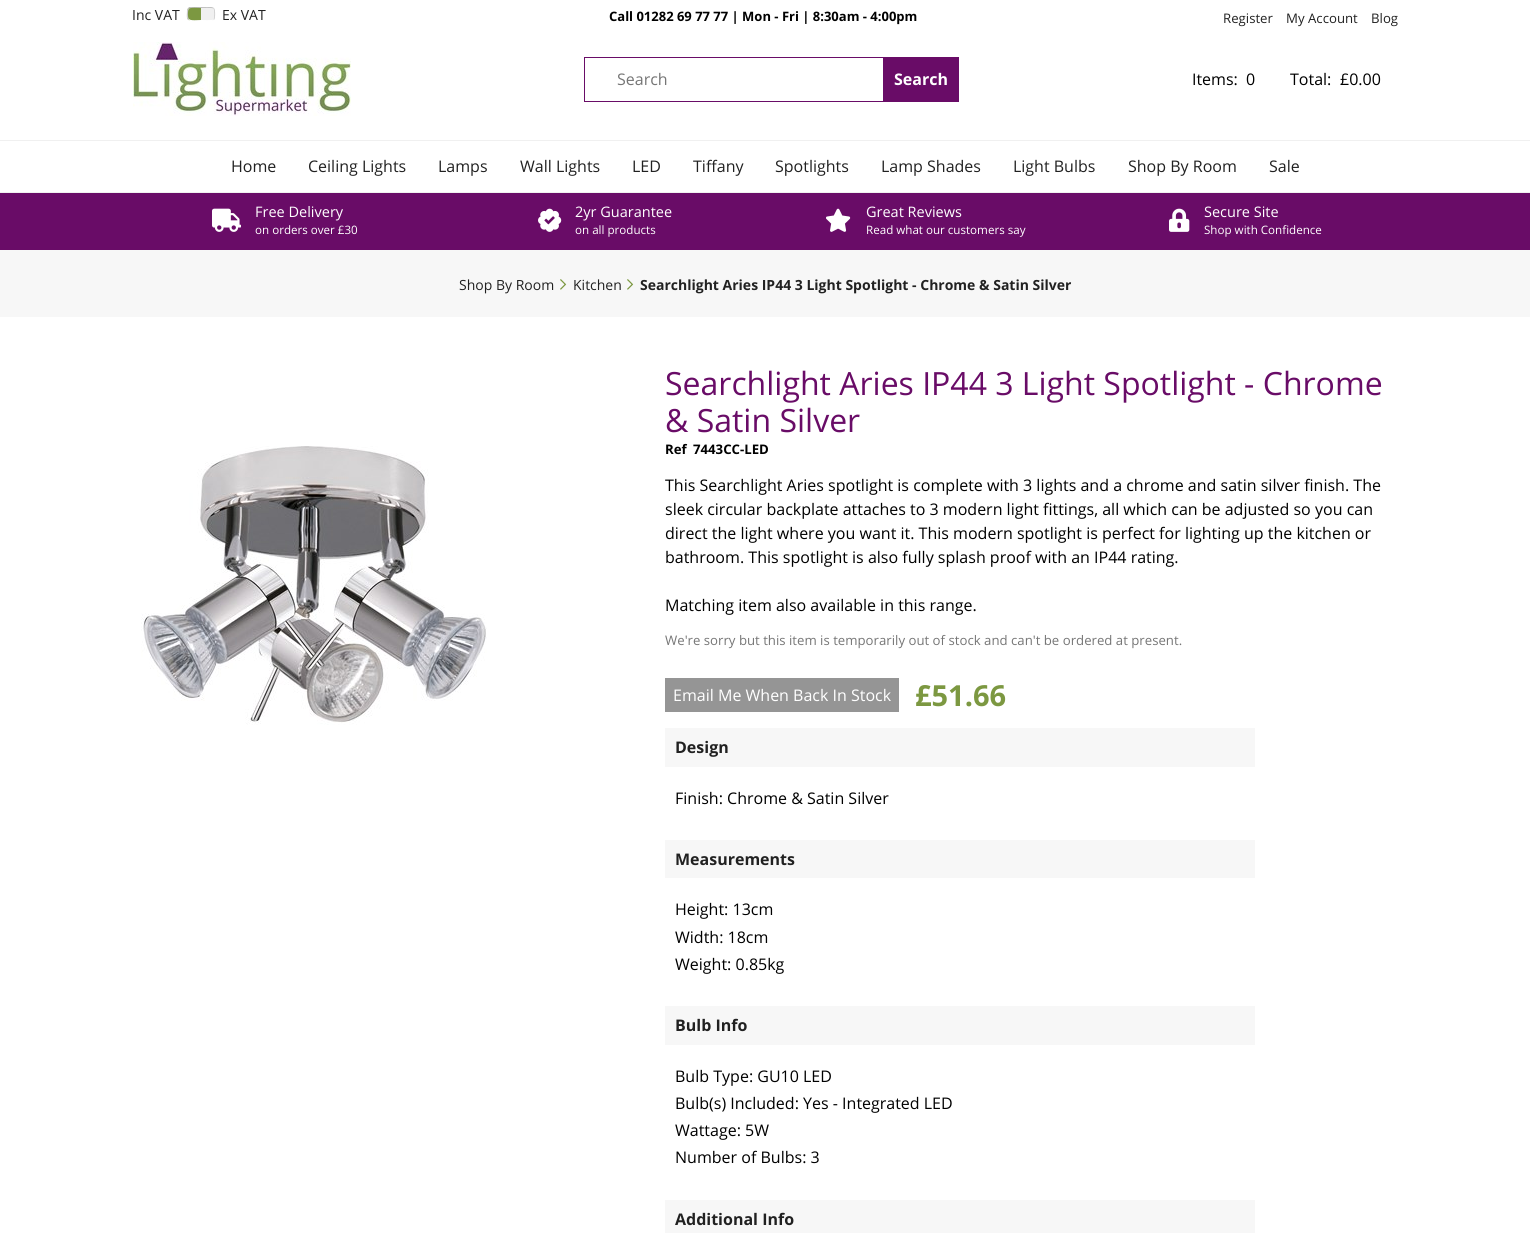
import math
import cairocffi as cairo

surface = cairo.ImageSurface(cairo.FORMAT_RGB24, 1530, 1233)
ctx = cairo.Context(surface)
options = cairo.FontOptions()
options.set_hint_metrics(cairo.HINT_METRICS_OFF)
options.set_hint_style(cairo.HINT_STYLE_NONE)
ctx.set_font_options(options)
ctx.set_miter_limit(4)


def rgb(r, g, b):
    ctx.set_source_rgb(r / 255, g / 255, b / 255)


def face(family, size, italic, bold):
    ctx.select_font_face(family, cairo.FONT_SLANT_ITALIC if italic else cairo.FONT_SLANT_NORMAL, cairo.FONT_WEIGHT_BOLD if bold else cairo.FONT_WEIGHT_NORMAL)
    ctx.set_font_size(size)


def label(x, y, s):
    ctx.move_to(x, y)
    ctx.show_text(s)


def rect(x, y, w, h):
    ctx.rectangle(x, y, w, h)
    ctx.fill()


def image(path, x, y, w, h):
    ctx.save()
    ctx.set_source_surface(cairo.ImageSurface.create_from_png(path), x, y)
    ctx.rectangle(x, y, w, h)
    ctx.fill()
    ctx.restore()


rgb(255, 255, 255)
ctx.paint()
face('Open Sans', 14, 0, 0)
rgb(33, 33, 33)
label(132, 20, 'Inc VAT')
rgb(124, 152, 65)
ctx.new_path()
ctx.move_to(191, 7)
ctx.line_to(201, 7)
ctx.line_to(201, 21)
ctx.line_to(191, 21)
ctx.curve_to(189, 21, 187, 19, 187, 17)
ctx.line_to(187, 11)
ctx.curve_to(187, 9, 189, 7, 191, 7)
ctx.close_path()
ctx.fill()
rgb(191, 191, 191)
ctx.new_path()
ctx.move_to(190.5, 7)
ctx.curve_to(189.5, 7, 188.5, 7.5, 188, 8)
ctx.line_to(189, 9)
ctx.curve_to(190, 7, 199, 8, 201, 8)
ctx.line_to(201, 7)
ctx.close_path()
ctx.fill()
rgb(255, 255, 255)
ctx.new_path()
ctx.move_to(201, 21)
ctx.line_to(201, 20)
ctx.curve_to(198.5, 20, 190.5, 21, 189, 19)
ctx.line_to(188, 20)
ctx.curve_to(188.5, 20.5, 189.5, 21, 190.5, 21)
ctx.close_path()
ctx.fill()
rgb(206, 206, 206)
ctx.new_path()
ctx.move_to(187, 10.5)
ctx.curve_to(187, 13, 186, 18, 188, 20)
ctx.line_to(189, 19)
ctx.curve_to(187.5, 18, 187.5, 10, 189, 9)
ctx.line_to(188, 8)
ctx.curve_to(187.5, 8.5, 187, 9.5, 187, 10.5)
ctx.close_path()
ctx.fill()
rgb(240, 240, 240)
ctx.new_path()
ctx.move_to(201, 7)
ctx.line_to(211, 7)
ctx.curve_to(213, 7, 215, 9, 215, 11)
ctx.line_to(215, 17)
ctx.curve_to(215, 19, 213, 21, 211, 21)
ctx.line_to(201, 21)
ctx.close_path()
ctx.fill()
rgb(191, 191, 191)
ctx.new_path()
ctx.move_to(201, 7)
ctx.line_to(201, 8)
ctx.curve_to(203, 8, 211.5, 7.5, 213.5, 8.5)
ctx.line_to(214, 8)
ctx.curve_to(213, 7.5, 212, 7, 210, 7)
ctx.close_path()
ctx.fill()
rgb(206, 206, 206)
ctx.new_path()
ctx.move_to(213.5, 19.5)
ctx.curve_to(214.5, 18.5, 214.5, 9.5, 213.5, 8.5)
ctx.line_to(214, 8)
ctx.curve_to(215.5, 9.5, 215.5, 18.5, 214, 20)
ctx.close_path()
ctx.fill()
rgb(255, 255, 255)
ctx.new_path()
ctx.move_to(201, 20)
ctx.line_to(201, 21)
ctx.curve_to(203.5, 21, 212, 22, 214, 20)
ctx.line_to(213.5, 19.5)
ctx.curve_to(211.5, 20.5, 203, 20, 201, 20)
ctx.close_path()
ctx.fill()
rgb(33, 33, 33)
label(222, 20, 'Ex VAT')
face('Open Sans', 13, 0, 1)
rgb(0, 0, 0)
label(609, 21, 'Call 01282 69 77 77 | Mon - Fri | 8:30am - 4:00pm')
face('Open Sans', 13.2, 0, 0)
rgb(33, 33, 33)
label(1223, 23, 'Register')
label(1286, 23, 'My Account')
label(1371, 23, 'Blog')
image('image0.png', 133, 42, 218, 74)
ctx.rectangle(584.5, 57.5, 299, 44)
rgb(105, 12, 103)
ctx.set_line_width(1)
ctx.stroke()
face('Open Sans', 16, 0, 0)
rgb(118, 118, 118)
label(617, 85, 'Search')
rgb(105, 12, 103)
rect(884, 57, 75, 45)
face('Open Sans', 16, 0, 1)
rgb(255, 255, 255)
label(894, 85, 'Search')
face('Open Sans', 16, 0, 0)
rgb(0, 0, 0)
label(1192, 85, 'Items:')
label(1246, 85, '0')
label(1290, 85, 'Total:')
label(1340, 85, '£0.00')
rgb(240, 240, 240)
rect(0, 140, 1530, 1)
rect(0, 192, 1530, 1)
rgb(33, 33, 33)
label(231, 172, 'Home')
label(308, 172, 'Ceiling Lights')
label(438, 172, 'Lamps')
label(520, 172, 'Wall Lights')
label(632, 172, 'LED')
label(693, 172, 'Tiffany')
label(775, 172, 'Spotlights')
label(881, 172, 'Lamp Shades')
label(1013, 172, 'Light Bulbs')
label(1128, 172, 'Shop By Room')
label(1269, 172, 'Sale')
rgb(105, 12, 103)
rect(0, 193, 1530, 57)
image('image1.png', 212, 208, 29, 24)
face('Open Sans', 14.5, 0, 0)
rgb(255, 255, 255)
label(255, 217, 'Free Delivery')
face('Open Sans', 11.6, 0, 0)
label(255, 234, 'on orders over £30')
image('image2.png', 538, 208, 24, 24)
face('Open Sans', 14.5, 0, 0)
label(575, 217, '2yr Guarantee')
face('Open Sans', 11.6, 0, 0)
label(575, 234, 'on all products')
image('image3.png', 826, 208, 25, 24)
face('Open Sans', 14.5, 0, 0)
label(866, 217, 'Great Reviews')
face('Open Sans', 11.6, 0, 0)
label(866, 234, 'Read what our customers say')
image('image4.png', 1169, 208, 21, 24)
face('Open Sans', 14.5, 0, 0)
label(1204, 217, 'Secure Site')
face('Open Sans', 11.6, 0, 0)
label(1204, 234, 'Shop with Confidence')
rgb(247, 247, 247)
rect(0, 250, 1530, 67)
face('Open Sans', 14, 0, 0)
rgb(33, 33, 33)
label(459, 290, 'Shop By Room')
image('image5.png', 560, 279, 7, 11)
label(573, 290, 'Kitchen')
image('image5.png', 627, 279, 7, 11)
face('Open Sans', 14, 0, 1)
label(640, 290, 'Searchlight Aries IP44 3 Light Spotlight - Chrome & Satin Silver')
image('image6.png', 141, 446, 346, 279)
face('Open Sans', 32, 0, 0)
rgb(105, 12, 103)
label(665, 395, 'Searchlight Aries IP44 3 Light Spotlight - Chrome')
label(665, 432, '& Satin Silver')
face('Open Sans', 13.2, 0, 1)
rgb(0, 0, 0)
label(665, 454, 'Ref')
label(693, 454, '7443CC-LED')
face('Open Sans', 16, 0, 0)
label(665, 491, 'This Searchlight Aries spotlight is complete with 3 lights and a chrome and satin silver finish. The')
label(665, 515, 'sleek circular backplate attaches to 3 modern light fittings, all which can be adjusted so you can')
label(665, 539, 'direct the light where you want it. This modern spotlight is perfect for lighting up the kitchen or')
label(665, 563, 'bathroom. This spotlight is also fully splash proof with an IP44 rating.')
label(665, 611, 'Matching item also available in this range.')
face('Open Sans', 13.2, 0, 0)
rgb(118, 118, 118)
label(665, 645, 'We\'re sorry but this item is temporarily out of stock and can\'t be ordered at present.')
rgb(149, 149, 149)
rect(665, 678, 234, 34)
face('Open Sans', 16, 0, 0)
rgb(255, 255, 255)
label(673, 701, 'Email Me When Back In Stock')
face('Open Sans', 29, 0, 1)
rgb(124, 152, 65)
label(915, 706, '£51.66')
rgb(247, 247, 247)
rect(665, 728, 590, 39)
face('Open Sans', 16, 0, 1)
rgb(33, 33, 33)
label(675, 753, 'Design')
face('Open Sans', 16, 0, 0)
rgb(0, 0, 0)
label(675, 804, 'Finish: Chrome & Satin Silver')
rgb(247, 247, 247)
rect(665, 840, 590, 38)
face('Open Sans', 16, 0, 1)
rgb(33, 33, 33)
label(675, 865, 'Measurements')
face('Open Sans', 16, 0, 0)
rgb(0, 0, 0)
label(675, 915, 'Height: 13cm')
label(675, 943, 'Width: 18cm')
label(675, 970, 'Weight: 0.85kg')
rgb(247, 247, 247)
rect(665, 1006, 590, 39)
face('Open Sans', 16, 0, 1)
rgb(33, 33, 33)
label(675, 1031, 'Bulb Info')
face('Open Sans', 16, 0, 0)
rgb(0, 0, 0)
label(675, 1082, 'Bulb Type: GU10 LED')
label(675, 1109, 'Bulb(s) Included: Yes - Integrated LED')
label(675, 1136, 'Wattage: 5W')
label(675, 1163, 'Number of Bulbs: 3')
rgb(247, 247, 247)
rect(665, 1200, 590, 33)
face('Open Sans', 16, 0, 1)
rgb(33, 33, 33)
label(675, 1225, 'Additional Info')
surface.write_to_png('render.png')
